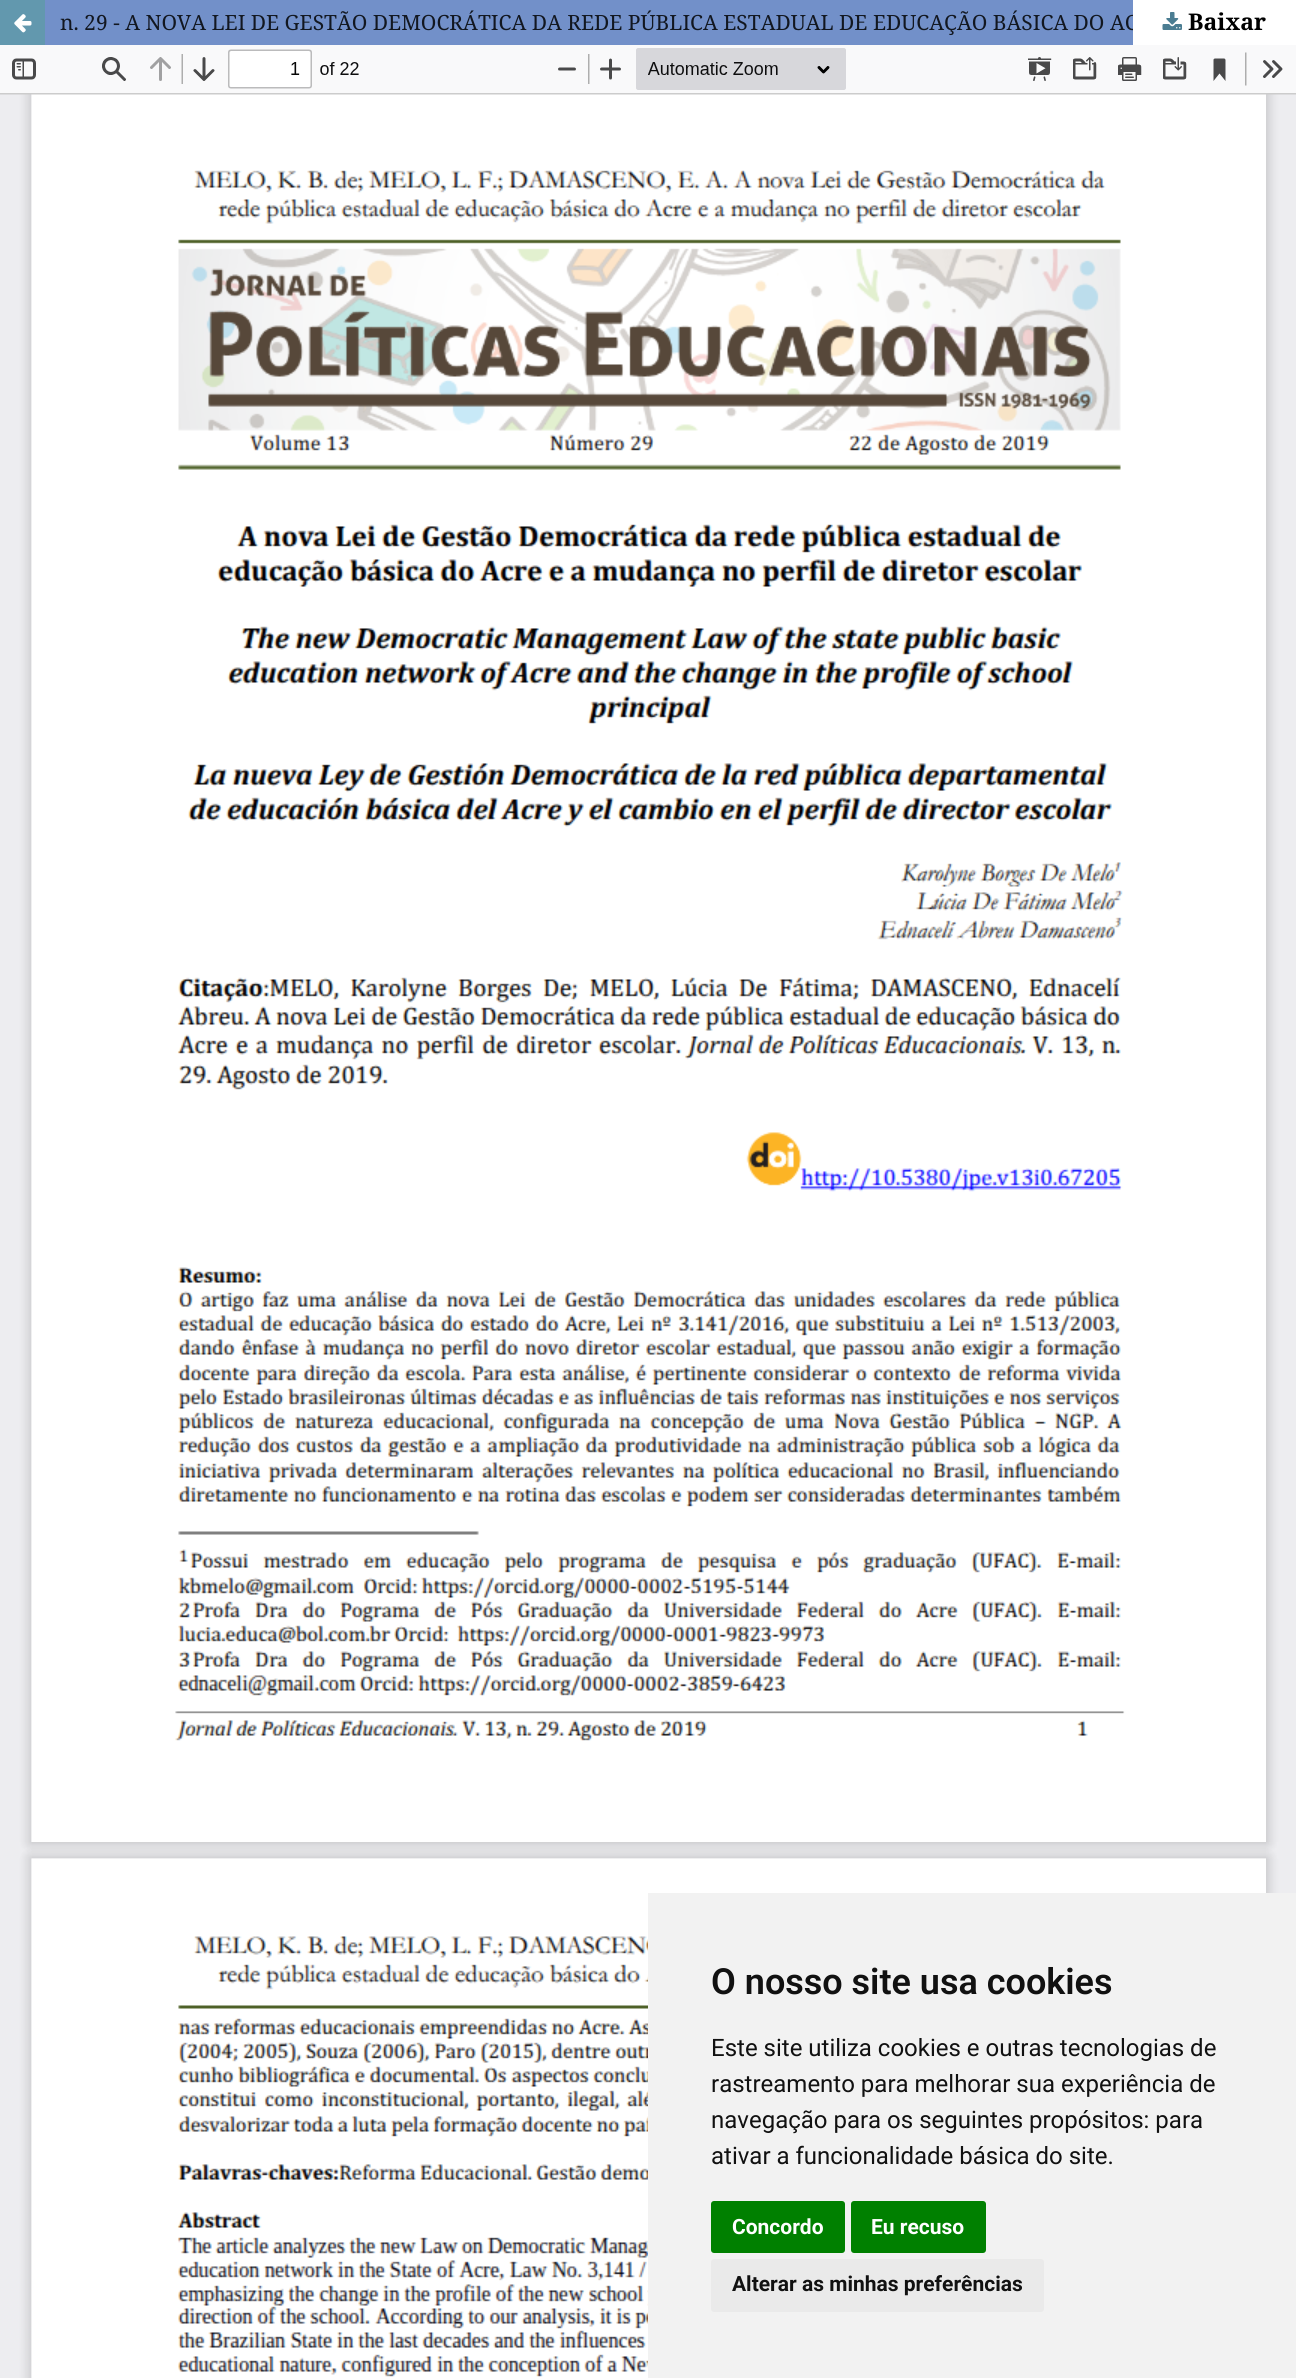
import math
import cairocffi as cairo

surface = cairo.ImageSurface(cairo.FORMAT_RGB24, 1296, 2378)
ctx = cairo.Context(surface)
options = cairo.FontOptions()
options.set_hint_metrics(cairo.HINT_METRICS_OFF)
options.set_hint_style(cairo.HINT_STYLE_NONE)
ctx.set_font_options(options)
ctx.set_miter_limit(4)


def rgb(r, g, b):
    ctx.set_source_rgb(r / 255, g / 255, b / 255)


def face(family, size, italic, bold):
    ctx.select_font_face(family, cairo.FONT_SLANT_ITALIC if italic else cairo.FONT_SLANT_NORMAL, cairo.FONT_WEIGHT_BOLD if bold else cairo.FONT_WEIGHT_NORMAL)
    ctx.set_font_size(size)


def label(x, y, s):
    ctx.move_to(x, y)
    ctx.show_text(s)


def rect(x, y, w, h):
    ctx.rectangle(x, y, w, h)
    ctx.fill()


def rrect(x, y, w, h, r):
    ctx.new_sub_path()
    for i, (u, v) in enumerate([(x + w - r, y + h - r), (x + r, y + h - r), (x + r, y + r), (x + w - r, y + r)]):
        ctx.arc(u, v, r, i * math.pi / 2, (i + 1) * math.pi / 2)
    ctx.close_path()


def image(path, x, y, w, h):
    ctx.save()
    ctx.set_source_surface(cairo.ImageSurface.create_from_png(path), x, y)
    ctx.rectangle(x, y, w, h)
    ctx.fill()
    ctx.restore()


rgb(255, 255, 255)
ctx.paint()
rgb(114, 144, 201)
rect(45, 0, 1088, 45)
rgb(98, 152, 174)
rect(0, 0, 45, 45)
image('image0.png', 14, 14, 18, 19)
face('Noto Serif', 21, 0, 0)
rgb(18, 23, 32)
label(60, 30, 'n. 29 - A NOVA LEI DE GESTÃO DEMOCRÁTICA DA REDE PÚBLICA ESTADUAL DE EDUCAÇÃO BÁSICA DO AC')
rgb(255, 255, 255)
rect(1133, 14, 4, 17)
image('image1.png', 1162, 12, 20, 18)
face('Noto Serif', 23, 0, 1)
rgb(0, 0, 0)
label(1188, 30, 'Baixar')
image('image2.png', 0, 45, 1296, 2333)
rgb(242, 242, 242)
rect(648, 1893, 648, 485)
face('Roboto SemiBold', 36, 0, 0)
rgb(17, 17, 17)
label(711, 1994, 'O nosso site usa cookies')
face('Roboto', 24, 0, 0)
label(711, 2056, 'Este site utiliza cookies e outras tecnologias de')
label(711, 2092, 'rastreamento para melhorar sua experiência de')
label(711, 2128, 'navegação para os seguintes propósitos: para')
label(711, 2164, 'ativar a funcionalidade básica do site.')
rgb(0, 128, 0)
rrect(711, 2201, 134, 52, 3)
ctx.fill()
face('Roboto', 21, 0, 1)
rgb(255, 255, 255)
label(732, 2234, 'Concordo')
rgb(0, 128, 0)
rrect(851, 2201, 135, 52, 3)
ctx.fill()
rgb(255, 255, 255)
label(871, 2234, 'Eu recuso')
rgb(234, 234, 234)
rrect(711, 2259, 333, 53, 3)
ctx.fill()
rgb(17, 17, 17)
label(732, 2291, 'Alterar as minhas preferências')
surface.write_to_png('render.png')
